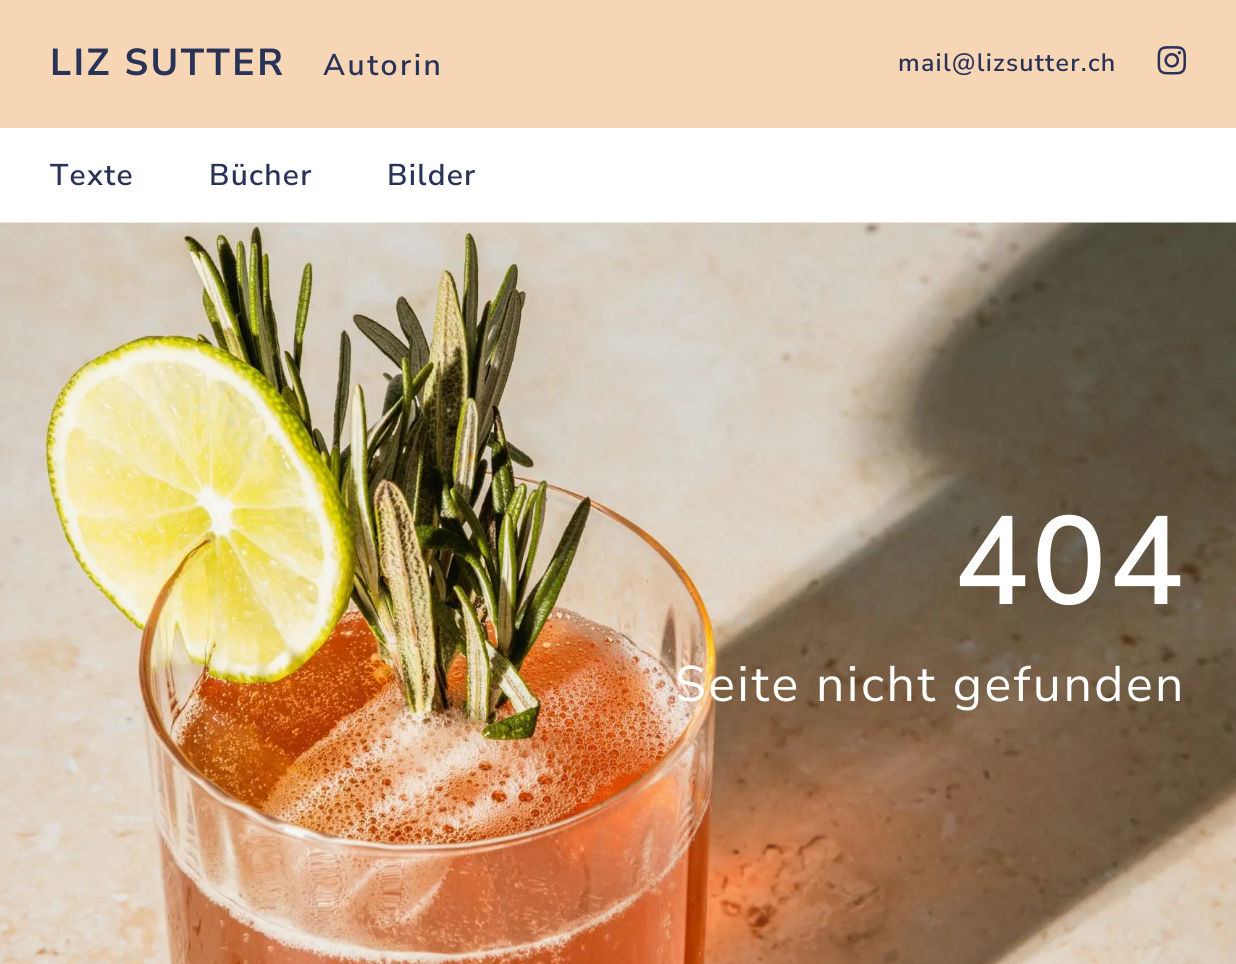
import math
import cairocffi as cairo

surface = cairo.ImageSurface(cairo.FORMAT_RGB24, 1236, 964)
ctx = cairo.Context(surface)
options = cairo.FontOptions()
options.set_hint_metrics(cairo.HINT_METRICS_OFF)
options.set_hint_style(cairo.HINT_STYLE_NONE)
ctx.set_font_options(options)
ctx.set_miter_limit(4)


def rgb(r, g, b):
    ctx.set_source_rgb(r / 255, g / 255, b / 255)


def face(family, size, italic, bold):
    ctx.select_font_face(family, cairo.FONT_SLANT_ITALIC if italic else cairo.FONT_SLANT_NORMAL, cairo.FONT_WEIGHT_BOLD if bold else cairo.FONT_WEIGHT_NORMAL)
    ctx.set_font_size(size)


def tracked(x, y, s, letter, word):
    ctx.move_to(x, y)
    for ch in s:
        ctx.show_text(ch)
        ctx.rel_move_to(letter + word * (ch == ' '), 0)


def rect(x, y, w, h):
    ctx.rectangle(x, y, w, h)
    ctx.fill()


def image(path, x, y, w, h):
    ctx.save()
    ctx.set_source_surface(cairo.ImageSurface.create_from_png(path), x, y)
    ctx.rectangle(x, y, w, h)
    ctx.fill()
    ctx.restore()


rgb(255, 255, 255)
ctx.paint()
rgb(246, 214, 180)
rect(0, 0, 1236, 128)
face('Nunito Sans', 37.5, 0, 1)
rgb(41, 50, 87)
tracked(50, 75, 'LIZ SUTTER', 2.5, 0)
face('Nunito Sans SemiBold', 30, 0, 0)
tracked(323, 75, 'Autorin', 2.5, 0)
face('Nunito Sans SemiBold', 25, 0, 0)
tracked(898, 71, 'mail@lizsutter.ch', 1.25, 0)
image('image0.png', 1157, 46, 29, 29)
face('Nunito Sans SemiBold', 30, 0, 0)
tracked(50, 185, 'Texte', 1.25, 0)
tracked(209, 185, 'Bücher', 1.25, 0)
tracked(387, 185, 'Bilder', 1.25, 0)
image('image1.png', 0, 222, 1236, 742)
face('Nunito Sans SemiBold', 125, 0, 0)
rgb(255, 255, 255)
tracked(954, 604, '404', 2.5, 0)
face('Nunito Sans', 50, 0, 0)
tracked(675, 701, 'Seite nicht gefunden', 2.5, 0)
surface.write_to_png('render.png')
